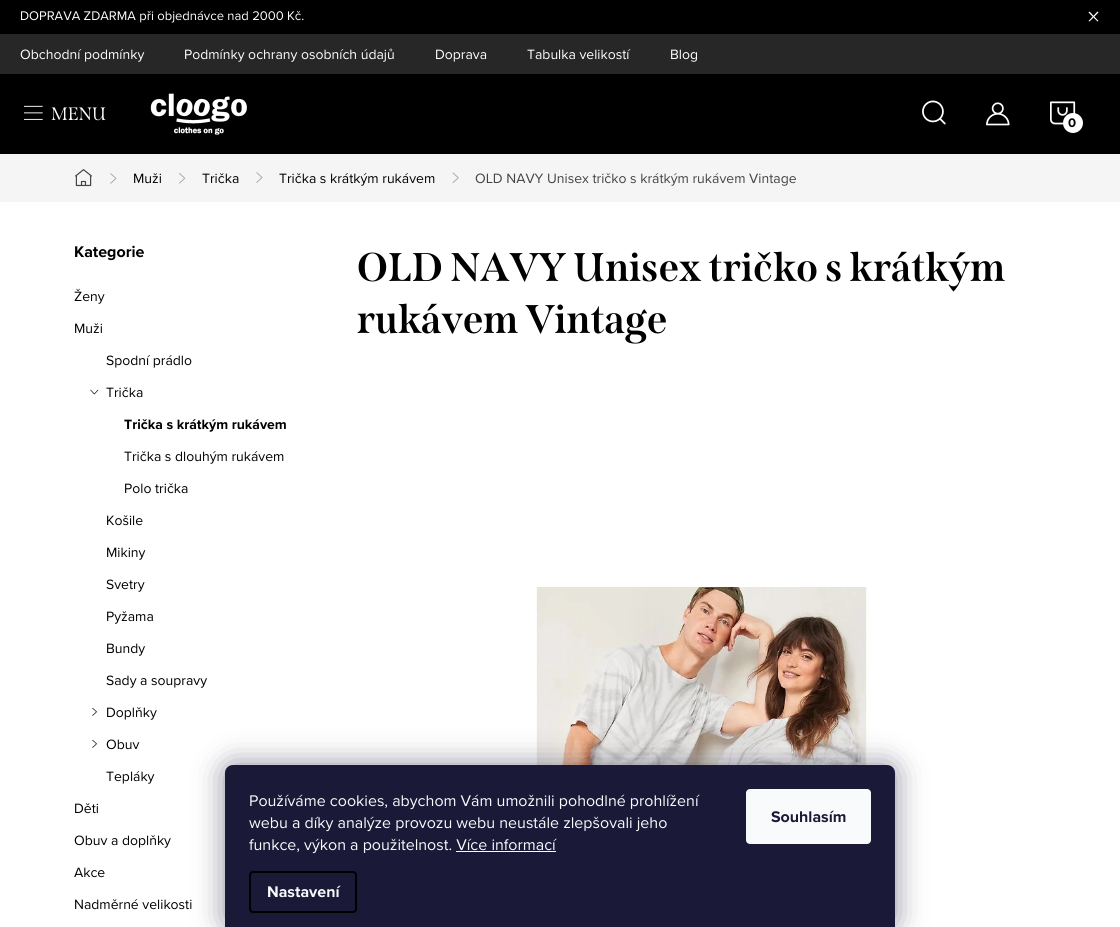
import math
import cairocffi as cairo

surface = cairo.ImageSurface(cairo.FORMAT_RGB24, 1120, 927)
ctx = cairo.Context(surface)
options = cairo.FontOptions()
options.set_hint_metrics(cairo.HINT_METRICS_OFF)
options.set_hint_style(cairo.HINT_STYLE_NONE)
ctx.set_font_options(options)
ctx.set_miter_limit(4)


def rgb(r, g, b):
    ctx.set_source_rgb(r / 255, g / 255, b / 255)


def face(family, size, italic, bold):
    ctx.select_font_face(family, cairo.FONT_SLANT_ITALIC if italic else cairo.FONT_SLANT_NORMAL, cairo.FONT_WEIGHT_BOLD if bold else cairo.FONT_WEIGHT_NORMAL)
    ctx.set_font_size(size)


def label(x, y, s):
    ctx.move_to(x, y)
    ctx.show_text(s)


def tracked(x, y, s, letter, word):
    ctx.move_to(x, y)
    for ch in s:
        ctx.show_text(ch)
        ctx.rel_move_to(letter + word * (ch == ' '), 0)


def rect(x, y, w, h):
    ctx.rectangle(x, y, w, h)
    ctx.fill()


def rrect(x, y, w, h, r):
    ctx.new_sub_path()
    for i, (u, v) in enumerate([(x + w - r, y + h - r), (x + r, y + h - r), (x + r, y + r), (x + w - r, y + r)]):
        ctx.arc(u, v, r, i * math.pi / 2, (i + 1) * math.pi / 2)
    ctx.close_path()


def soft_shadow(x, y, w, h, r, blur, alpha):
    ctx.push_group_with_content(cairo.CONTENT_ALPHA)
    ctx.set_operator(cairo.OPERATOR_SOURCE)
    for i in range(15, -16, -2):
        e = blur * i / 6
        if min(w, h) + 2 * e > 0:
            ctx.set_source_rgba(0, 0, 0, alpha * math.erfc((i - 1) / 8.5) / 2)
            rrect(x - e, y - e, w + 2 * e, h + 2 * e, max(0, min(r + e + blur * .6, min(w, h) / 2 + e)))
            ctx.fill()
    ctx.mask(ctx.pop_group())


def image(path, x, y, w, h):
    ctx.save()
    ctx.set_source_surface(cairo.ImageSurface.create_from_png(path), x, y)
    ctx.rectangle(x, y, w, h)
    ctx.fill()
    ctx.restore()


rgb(255, 255, 255)
ctx.paint()
rgb(0, 0, 0)
rect(0, 0, 1120, 34)
face('Proxima Nova', 13, 0, 0)
rgb(255, 255, 255)
label(20, 20, 'DOPRAVA ZDARMA při objednávce nad 2000 Kč.')
ctx.new_path()
ctx.move_to(1097.5, 11.5)
ctx.line_to(1098.5, 12.5)
ctx.line_to(1089.5, 21.5)
ctx.line_to(1088.5, 21)
ctx.close_path()
ctx.fill()
ctx.new_path()
ctx.move_to(1089.5, 11.5)
ctx.line_to(1098.5, 21)
ctx.line_to(1097.5, 21.5)
ctx.line_to(1088.5, 12.5)
ctx.close_path()
ctx.fill()
rgb(39, 39, 39)
rect(0, 34, 1120, 40)
face('Proxima Nova', 14, 0, 0)
rgb(255, 255, 255)
label(20, 59, 'Obchodní podmínky')
label(184, 59, 'Podmínky ochrany osobních údajů')
label(435, 59, 'Doprava')
label(527, 59, 'Tabulka velikostí')
label(670, 59, 'Blog')
rgb(0, 0, 0)
rect(0, 74, 1120, 80)
image('image0.png', 24, 105, 19, 15)
face('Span', 18, 0, 0)
rgb(255, 255, 255)
label(51, 120, 'MENU')
image('image1.png', 150, 93, 97, 42)
image('image2.png', 922, 100, 24, 25)
image('image3.png', 986, 102, 24, 24)
image('image4.png', 1050, 101, 26, 24)
ctx.arc(1073, 123, 10, 0, 2 * math.pi)
ctx.fill()
face('Proxima Nova', 13, 0, 1)
rgb(0, 0, 0)
tracked(1068, 127, '0', 1, 0)
rgb(245, 245, 245)
rect(0, 154, 1120, 48)
image('image5.png', 75, 169, 17, 18)
image('image6.png', 110, 173, 7, 11)
face('Proxima Nova', 14, 0, 0)
rgb(0, 0, 0)
label(133, 183, 'Muži')
image('image7.png', 179, 173, 7, 11)
label(202, 183, 'Trička')
image('image8.png', 256, 172, 7, 11)
label(279, 183, 'Trička s krátkým rukávem')
image('image9.png', 452, 172, 7, 11)
rgb(67, 67, 67)
label(475, 183, 'OLD NAVY Unisex tričko s krátkým rukávem Vintage')
face('Proxima Nova', 16, 0, 1)
rgb(0, 0, 0)
label(74, 257, 'Kategorie')
face('Proxima Nova', 14, 0, 0)
label(74, 301, 'Ženy')
label(74, 333, 'Muži')
label(106, 365, 'Spodní prádlo')
image('image10.png', 90, 389, 9, 6)
label(106, 397, 'Trička')
face('Proxima Nova', 14, 0, 1)
label(124, 429, 'Trička s krátkým rukávem')
face('Proxima Nova', 14, 0, 0)
label(124, 461, 'Trička s dlouhým rukávem')
label(124, 493, 'Polo trička')
label(106, 525, 'Košile')
label(106, 557, 'Mikiny')
label(106, 589, 'Svetry')
label(106, 621, 'Pyžama')
label(106, 653, 'Bundy')
label(106, 685, 'Sady a soupravy')
image('image11.png', 92, 707, 5, 9)
label(106, 717, 'Doplňky')
image('image11.png', 92, 739, 5, 9)
label(106, 749, 'Obuv')
label(106, 781, 'Tepláky')
label(74, 813, 'Děti')
label(74, 845, 'Obuv a doplňky')
label(74, 877, 'Akce')
label(74, 909, 'Nadměrné velikosti')
face('Span', 40, 0, 1)
label(357, 281, 'OLD NAVY Unisex tričko s krátkým')
label(357, 333, 'rukávem Vintage')
image('image12.png', 535, 586, 337, 179)
rgb(27, 25, 57)
soft_shadow(225, 765, 670, 162, 8, 15, 0.5)
rgb(26, 25, 55)
ctx.new_path()
ctx.move_to(233, 765)
ctx.line_to(887, 765)
ctx.curve_to(891.5, 765, 895, 768.5, 895, 773)
ctx.line_to(895, 927)
ctx.line_to(225, 927)
ctx.line_to(225, 773)
ctx.curve_to(225, 768.5, 228.5, 765, 233, 765)
ctx.close_path()
ctx.fill()
face('Proxima Nova', 16, 0, 0)
rgb(248, 250, 251)
label(249, 806, 'Používáme cookies, abychom Vám umožnili pohodlné prohlížení')
label(249, 828, 'webu a díky analýze provozu webu neustále zlepšovali jeho')
label(249, 850, 'funkce, výkon a použitelnost. Více informací')
rect(456, 851, 100, 1)
rrect(250, 872, 106, 40, 3)
rgb(0, 0, 0)
ctx.stroke()
face('Proxima Nova', 16, 0, 1)
rgb(248, 250, 251)
label(267, 897, 'Nastavení')
rrect(746, 789, 125, 55, 4)
ctx.fill()
rgb(26, 25, 55)
label(771, 822, 'Souhlasím')
surface.write_to_png('render.png')
